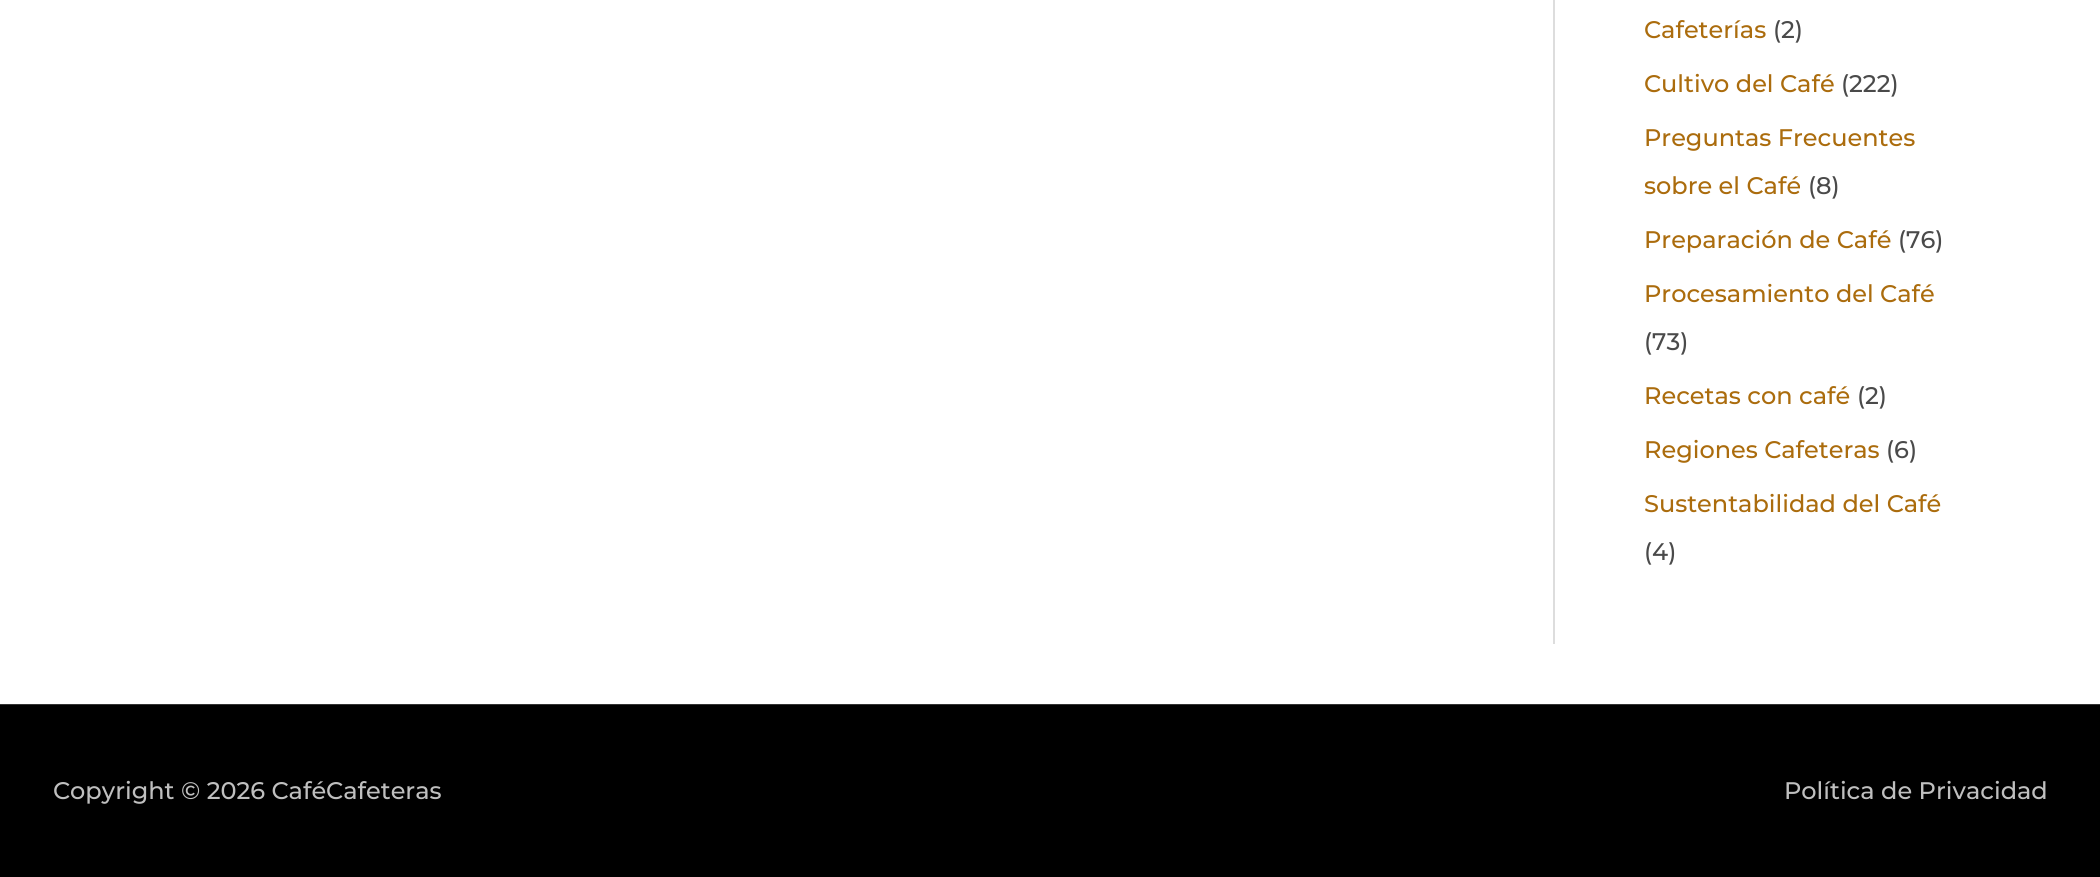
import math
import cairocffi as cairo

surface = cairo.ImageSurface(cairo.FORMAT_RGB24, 2100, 877)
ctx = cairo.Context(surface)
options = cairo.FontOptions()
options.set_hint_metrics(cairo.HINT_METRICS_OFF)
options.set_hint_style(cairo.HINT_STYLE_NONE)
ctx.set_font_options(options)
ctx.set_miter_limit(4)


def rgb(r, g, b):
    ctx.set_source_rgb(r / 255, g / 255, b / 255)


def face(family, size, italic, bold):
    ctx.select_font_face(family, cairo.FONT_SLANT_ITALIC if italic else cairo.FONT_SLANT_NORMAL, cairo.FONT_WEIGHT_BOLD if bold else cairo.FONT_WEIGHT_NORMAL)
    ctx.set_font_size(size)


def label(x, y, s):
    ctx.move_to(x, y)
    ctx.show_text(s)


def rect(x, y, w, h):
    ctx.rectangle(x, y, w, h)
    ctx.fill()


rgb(255, 255, 255)
ctx.paint()
rgb(221, 221, 221)
rect(1553, 0, 2, 644)
face('Montserrat Medium', 24, 0, 0)
rgb(171, 108, 13)
label(1644, 38, 'Cafeterías')
rgb(74, 74, 74)
label(1773, 38, '(2)')
rgb(171, 108, 13)
label(1644, 92, 'Cultivo del Café')
rgb(74, 74, 74)
label(1841, 92, '(222)')
rgb(171, 108, 13)
label(1644, 146, 'Preguntas Frecuentes')
label(1644, 194, 'sobre el Café')
rgb(74, 74, 74)
label(1808, 194, '(8)')
rgb(171, 108, 13)
label(1644, 248, 'Preparación de Café')
rgb(74, 74, 74)
label(1898, 248, '(76)')
rgb(171, 108, 13)
label(1644, 302, 'Procesamiento del Café')
rgb(74, 74, 74)
label(1644, 350, '(73)')
rgb(171, 108, 13)
label(1644, 404, 'Recetas con café')
rgb(74, 74, 74)
label(1857, 404, '(2)')
rgb(171, 108, 13)
label(1644, 458, 'Regiones Cafeteras')
rgb(74, 74, 74)
label(1886, 458, '(6)')
rgb(171, 108, 13)
label(1644, 512, 'Sustentabilidad del Café')
rgb(74, 74, 74)
label(1644, 560, '(4)')
rgb(51, 51, 51)
rect(0, 704, 2100, 1)
rgb(0, 0, 0)
rect(0, 705, 2100, 172)
rgb(191, 191, 191)
label(53, 799, 'Copyright © 2026 CaféCafeteras')
label(1784, 799, 'Política de Privacidad')
surface.write_to_png('render.png')
